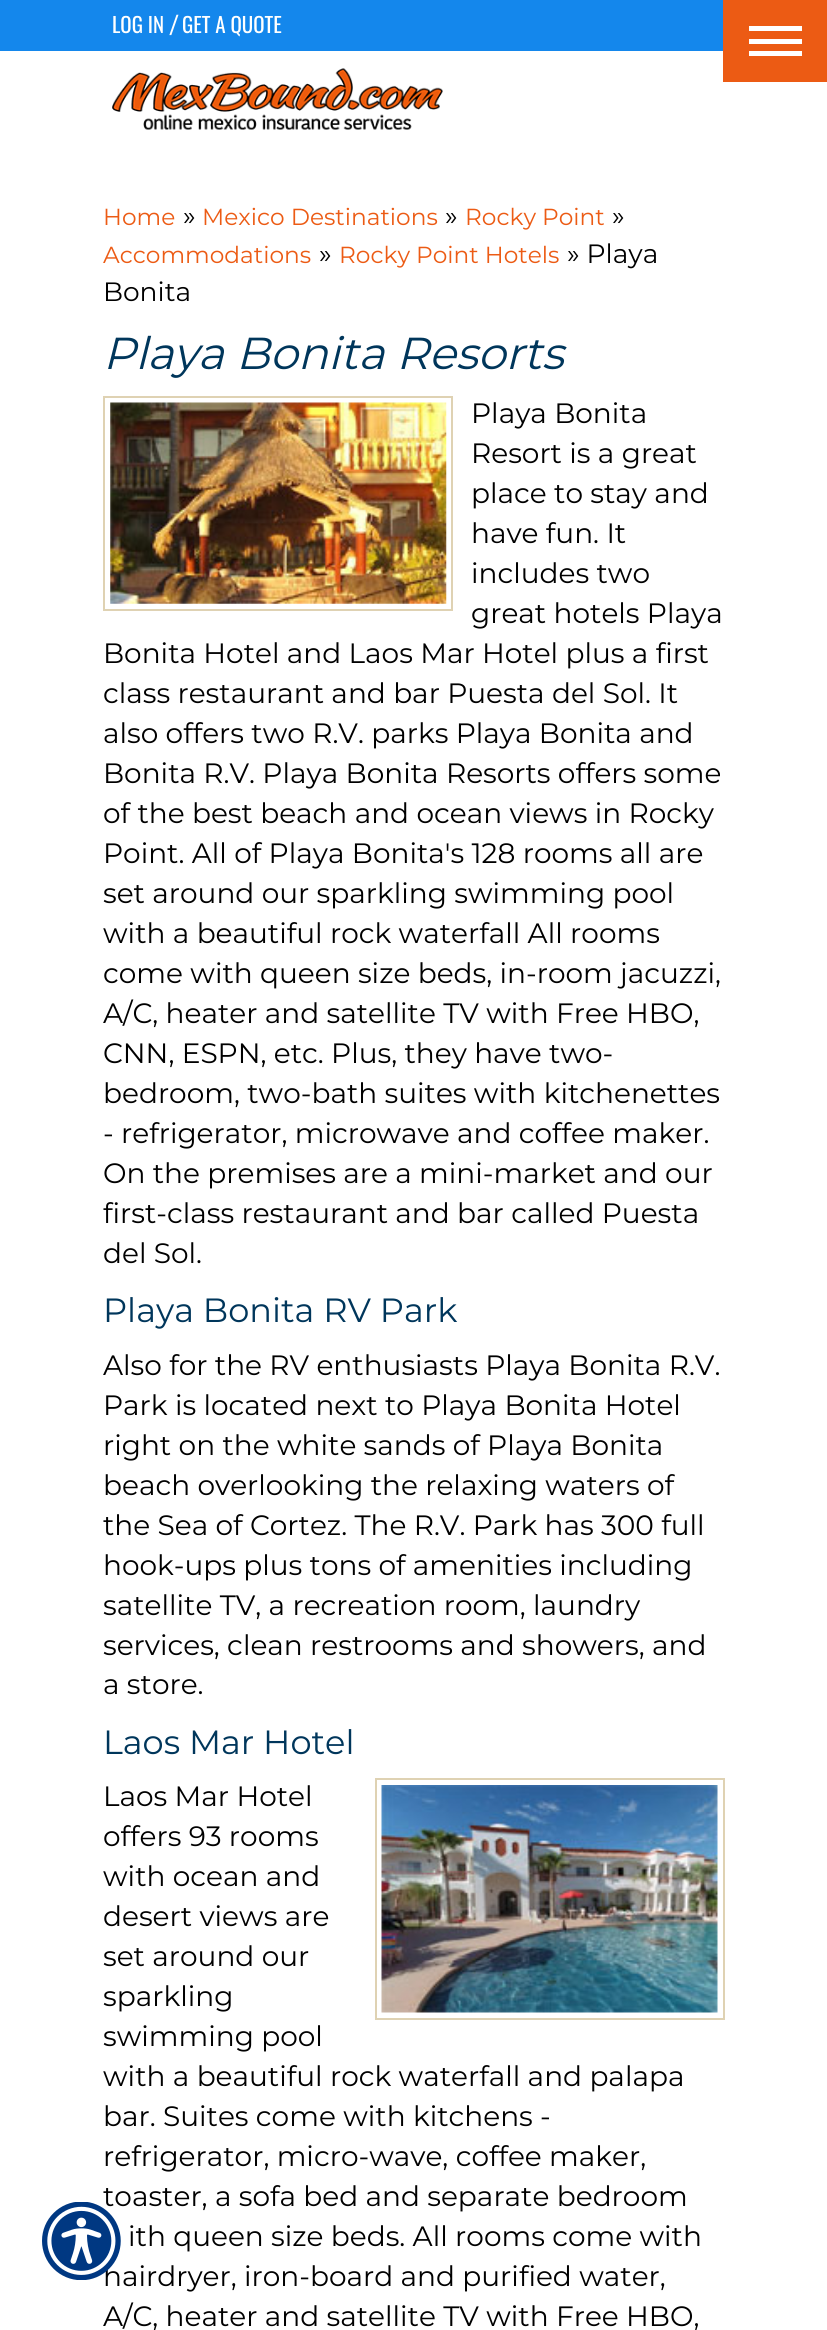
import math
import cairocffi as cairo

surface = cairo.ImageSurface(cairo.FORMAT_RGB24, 827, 2330)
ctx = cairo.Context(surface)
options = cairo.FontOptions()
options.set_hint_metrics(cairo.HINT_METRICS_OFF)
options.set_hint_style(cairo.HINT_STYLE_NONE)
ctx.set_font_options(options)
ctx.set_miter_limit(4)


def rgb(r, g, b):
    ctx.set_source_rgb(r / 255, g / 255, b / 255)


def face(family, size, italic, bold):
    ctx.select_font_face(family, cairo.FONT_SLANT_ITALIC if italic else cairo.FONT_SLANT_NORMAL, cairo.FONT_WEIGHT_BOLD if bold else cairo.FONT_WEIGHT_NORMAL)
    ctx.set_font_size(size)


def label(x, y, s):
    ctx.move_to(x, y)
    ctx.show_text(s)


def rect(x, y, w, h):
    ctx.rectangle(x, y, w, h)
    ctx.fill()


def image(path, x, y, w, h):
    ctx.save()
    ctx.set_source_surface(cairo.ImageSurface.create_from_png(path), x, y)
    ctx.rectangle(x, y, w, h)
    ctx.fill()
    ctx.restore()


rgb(255, 255, 255)
ctx.paint()
face('Montserrat Thin', 28, 0, 0)
rgb(0, 0, 0)
label(103, 2206, 'toaster, a sofa bed and separate bedroom')
label(103, 2286, 'hairdryer, iron-board and purified water,')
image('image0.png', 42, 2202, 79, 78)
rgb(20, 135, 236)
rect(0, 0, 723, 51)
face('Oswald', 21, 0, 0)
rgb(255, 255, 255)
label(112, 33, 'LOG IN')
face('Montserrat', 21, 0, 1)
label(170, 33, '/')
face('Oswald', 21, 0, 0)
label(182, 33, 'GET A QUOTE')
rgb(236, 91, 20)
rect(723, 0, 104, 82)
rgb(255, 255, 255)
rect(749, 26, 53, 5)
rect(749, 39, 53, 5)
rect(749, 51, 53, 5)
image('image1.png', 112, 68, 331, 62)
face('Montserrat Thin', 23.25, 0, 0)
rgb(236, 91, 20)
label(103, 225, 'Home')
face('Montserrat Thin', 26.5, 0, 0)
rgb(0, 0, 0)
label(183, 225, '»')
face('Montserrat Thin', 23.25, 0, 0)
rgb(236, 91, 20)
label(202, 225, 'Mexico Destinations')
face('Montserrat Thin', 26.5, 0, 0)
rgb(0, 0, 0)
label(445, 225, '»')
face('Montserrat Thin', 23.25, 0, 0)
rgb(236, 91, 20)
label(465, 225, 'Rocky Point')
face('Montserrat Thin', 26.5, 0, 0)
rgb(0, 0, 0)
label(612, 225, '»')
face('Montserrat Thin', 23.25, 0, 0)
rgb(236, 91, 20)
label(103, 263, 'Accommodations')
face('Montserrat Thin', 26.5, 0, 0)
rgb(0, 0, 0)
label(319, 263, '»')
face('Montserrat Thin', 23.25, 0, 0)
rgb(236, 91, 20)
label(339, 263, 'Rocky Point Hotels')
face('Montserrat Thin', 26.5, 0, 0)
rgb(0, 0, 0)
label(567, 263, '» Playa')
label(103, 301, 'Bonita')
face('Montserrat Thin', 44.75, 1, 0)
rgb(0, 54, 91)
label(103, 369, 'Playa Bonita Resorts')
ctx.rectangle(104, 397, 348, 213)
rgb(223, 210, 179)
ctx.stroke()
image('image2.png', 110, 402, 337, 202)
face('Montserrat Thin', 28, 0, 0)
rgb(0, 0, 0)
label(471, 423, 'Playa Bonita')
label(471, 463, 'Resort is a great')
label(471, 503, 'place to stay and')
label(471, 543, 'have fun. It')
label(471, 583, 'includes two')
label(471, 623, 'great hotels Playa')
label(103, 663, 'Bonita Hotel and Laos Mar Hotel plus a first')
label(103, 703, 'class restaurant and bar Puesta del Sol. It')
label(103, 743, 'also offers two R.V. parks Playa Bonita and')
label(103, 783, 'Bonita R.V. Playa Bonita Resorts offers some')
label(103, 823, 'of the best beach and ocean views in Rocky')
label(103, 863, 'Point. All of Playa Bonita\'s 128 rooms all are')
label(103, 903, 'set around our sparkling swimming pool')
label(103, 943, 'with a beautiful rock waterfall All rooms')
label(103, 983, 'come with queen size beds, in-room jacuzzi,')
label(103, 1023, 'A/C, heater and satellite TV with Free HBO,')
label(103, 1063, 'CNN, ESPN, etc. Plus, they have two-')
label(103, 1103, 'bedroom, two-bath suites with kitchenettes')
label(103, 1143, '- refrigerator, microwave and coffee maker.')
label(103, 1183, 'On the premises are a mini-market and our')
label(103, 1223, 'first-class restaurant and bar called Puesta')
label(103, 1263, 'del Sol.')
face('Montserrat Thin', 33.6, 0, 0)
rgb(0, 54, 91)
label(103, 1322, 'Playa Bonita RV Park')
face('Montserrat Thin', 28, 0, 0)
rgb(0, 0, 0)
label(103, 1375, 'Also for the RV enthusiasts Playa Bonita R.V.')
label(103, 1415, 'Park is located next to Playa Bonita Hotel')
label(103, 1455, 'right on the white sands of Playa Bonita')
label(103, 1495, 'beach overlooking the relaxing waters of')
label(103, 1535, 'the Sea of Cortez. The R.V. Park has 300 full')
label(103, 1575, 'hook-ups plus tons of amenities including')
label(103, 1615, 'satellite TV, a recreation room, laundry')
label(103, 1655, 'services, clean restrooms and showers, and')
label(103, 1694, 'a store.')
face('Montserrat Thin', 33.6, 0, 0)
rgb(0, 54, 91)
label(103, 1754, 'Laos Mar Hotel')
face('Montserrat Thin', 28, 0, 0)
rgb(0, 0, 0)
label(103, 1806, 'Laos Mar Hotel')
ctx.rectangle(376, 1779, 348, 240)
rgb(223, 210, 179)
ctx.stroke()
image('image3.png', 381, 1785, 337, 228)
rgb(0, 0, 0)
label(103, 1846, 'offers 93 rooms')
label(103, 1886, 'with ocean and')
label(103, 1926, 'desert views are')
label(103, 1966, 'set around our')
label(103, 2006, 'sparkling')
label(103, 2046, 'swimming pool')
label(103, 2086, 'with a beautiful rock waterfall and palapa')
label(103, 2126, 'bar. Suites come with kitchens -')
label(103, 2166, 'refrigerator, micro-wave, coffee maker,')
label(128, 2246, 'ith queen size beds. All rooms come with')
label(103, 2326, 'A/C, heater and satellite TV with Free HBO,')
surface.write_to_png('render.png')
